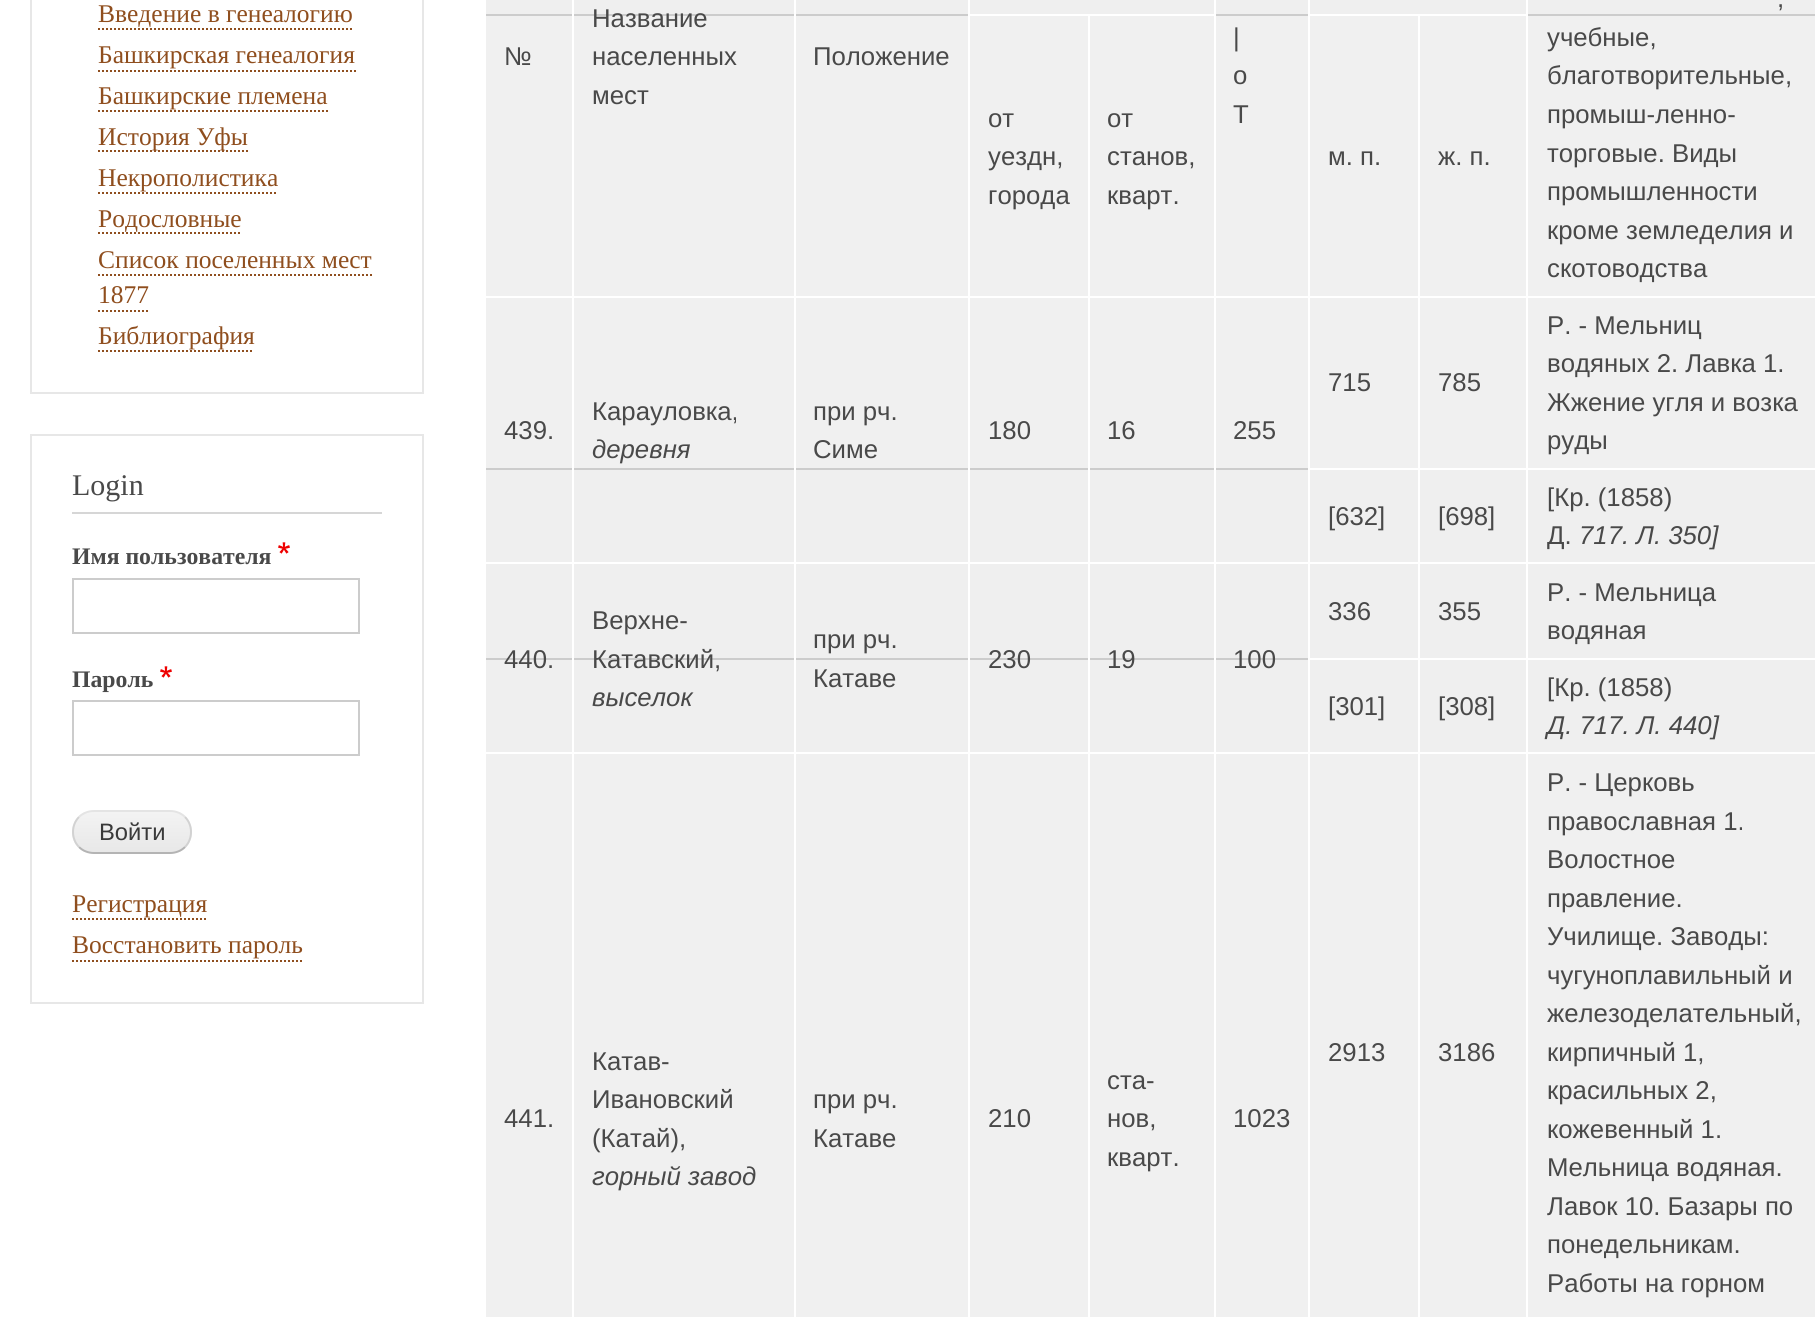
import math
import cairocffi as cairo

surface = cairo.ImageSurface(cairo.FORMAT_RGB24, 1815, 1317)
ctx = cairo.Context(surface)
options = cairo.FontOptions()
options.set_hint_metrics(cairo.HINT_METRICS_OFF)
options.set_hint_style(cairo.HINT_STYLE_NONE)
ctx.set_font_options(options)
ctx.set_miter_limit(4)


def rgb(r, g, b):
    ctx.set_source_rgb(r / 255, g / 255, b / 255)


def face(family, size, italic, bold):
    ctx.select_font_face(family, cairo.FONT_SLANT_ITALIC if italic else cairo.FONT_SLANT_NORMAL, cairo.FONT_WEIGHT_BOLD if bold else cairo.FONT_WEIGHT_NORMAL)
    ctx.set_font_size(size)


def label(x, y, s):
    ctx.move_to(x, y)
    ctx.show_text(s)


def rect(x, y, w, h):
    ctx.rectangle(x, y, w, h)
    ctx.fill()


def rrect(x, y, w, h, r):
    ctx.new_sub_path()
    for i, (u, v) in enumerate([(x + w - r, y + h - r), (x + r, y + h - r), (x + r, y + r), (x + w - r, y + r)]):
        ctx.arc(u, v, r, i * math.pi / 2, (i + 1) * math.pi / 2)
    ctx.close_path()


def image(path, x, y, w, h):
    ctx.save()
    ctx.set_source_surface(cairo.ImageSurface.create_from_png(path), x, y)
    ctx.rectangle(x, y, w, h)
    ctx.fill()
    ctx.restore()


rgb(255, 255, 255)
ctx.paint()
ctx.rectangle(31, -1, 392, 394)
rgb(231, 231, 231)
ctx.stroke()
face('Liberation Serif', 25.5, 0, 0)
rgb(143, 78, 30)
label(98, 22, 'Введение в генеалогию')
ctx.new_path()
ctx.move_to(98, 29)
ctx.line_to(352, 29)
ctx.set_dash([2, 2])
ctx.stroke()
label(98, 63, 'Башкирская генеалогия')
ctx.new_path()
ctx.move_to(98, 71)
ctx.line_to(356, 71)
ctx.stroke()
label(98, 104, 'Башкирские племена')
ctx.new_path()
ctx.move_to(98, 111)
ctx.line_to(328, 111)
ctx.stroke()
ctx.new_path()
ctx.move_to(98, 151)
ctx.line_to(248, 151)
ctx.stroke()
label(98, 145, 'История Уфы')
label(98, 186, 'Некрополистика')
ctx.new_path()
ctx.move_to(98, 193)
ctx.line_to(278, 193)
ctx.stroke()
label(98, 227, 'Родословные')
ctx.new_path()
ctx.move_to(98, 233)
ctx.line_to(242, 233)
ctx.stroke()
label(98, 268, 'Список поселенных мест')
ctx.new_path()
ctx.move_to(98, 275)
ctx.line_to(372, 275)
ctx.stroke()
label(98, 303, '1877')
ctx.new_path()
ctx.move_to(98, 311)
ctx.line_to(148, 311)
ctx.stroke()
label(98, 344, 'Библиография')
ctx.new_path()
ctx.move_to(98, 351)
ctx.line_to(254, 351)
ctx.stroke()
ctx.rectangle(31, 435, 392, 568)
rgb(231, 231, 231)
ctx.set_dash([])
ctx.stroke()
rgb(214, 214, 214)
rect(72, 512, 310, 2)
face('Liberation Serif', 30, 0, 0)
rgb(73, 73, 73)
label(72, 495, 'Login')
face('Liberation Serif', 23.75, 0, 1)
label(72, 564, 'Имя пользователя')
image('image0.png', 278, 542, 12, 12)
ctx.rectangle(73, 579, 286, 54)
rgb(204, 204, 204)
ctx.stroke()
rgb(73, 73, 73)
label(72, 687, 'Пароль')
image('image0.png', 160, 666, 12, 12)
ctx.rectangle(73, 701, 286, 54)
rgb(204, 204, 204)
ctx.stroke()
ctx.save()
rrect(72, 810, 120, 44, 22)
ctx.clip()
gradient = cairo.LinearGradient(132, 812, 132, 852)
gradient.add_color_stop_rgba(0, 0.953, 0.953, 0.953, 1)
gradient.add_color_stop_rgba(1, 0.91, 0.91, 0.91, 1)
ctx.set_source(gradient)
rect(72, 812, 120, 40)
ctx.restore()
ctx.new_path()
ctx.move_to(79, 817)
ctx.curve_to(83, 813, 88.5, 811, 94, 811)
ctx.line_to(170, 811)
ctx.curve_to(175.5, 811, 181, 813, 185, 817)
rgb(228, 228, 228)
ctx.stroke()
ctx.new_path()
ctx.move_to(185, 817)
ctx.curve_to(193, 825, 193, 839, 185, 847)
rgb(210, 210, 210)
ctx.stroke()
ctx.new_path()
ctx.move_to(185, 847)
ctx.curve_to(181, 851, 175.5, 853, 170, 853)
ctx.line_to(94, 853)
ctx.curve_to(88.5, 853, 83, 851, 79, 847)
rgb(180, 180, 180)
ctx.stroke()
ctx.new_path()
ctx.move_to(79, 847)
ctx.curve_to(71, 839, 71, 825, 79, 817)
rgb(210, 210, 210)
ctx.stroke()
face('Liberation Sans', 23.75, 0, 0)
rgb(58, 58, 58)
label(99, 840, 'Войти')
face('Liberation Serif', 25.5, 0, 0)
rgb(143, 78, 30)
label(72, 912, 'Регистрация')
ctx.new_path()
ctx.move_to(72, 919)
ctx.line_to(208, 919)
ctx.set_dash([2, 2])
ctx.stroke()
label(72, 953, 'Восстановить пароль')
ctx.new_path()
ctx.move_to(72, 961)
ctx.line_to(304, 961)
ctx.stroke()
rgb(239, 239, 239)
rect(486, 0, 1329, 14)
rgb(204, 204, 204)
rect(484, 14, 1331, 2)
rgb(255, 255, 255)
rect(484, 14, 2, 2)
rgb(240, 240, 240)
rect(486, 16, 1329, 280)
face('Liberation Sans', 25.75, 0, 0)
rgb(73, 73, 73)
label(504, 65, '№')
label(592, 27, 'Название')
label(592, 65, 'населенных')
label(592, 104, 'мест')
label(813, 65, 'Положение')
rgb(255, 255, 255)
rect(1088, 14, 128, 2)
rgb(240, 240, 240)
rect(486, 298, 1329, 170)
rgb(204, 204, 204)
rect(484, 468, 824, 2)
rgb(239, 239, 239)
rect(486, 470, 1329, 92)
rect(486, 564, 1329, 94)
rgb(204, 204, 204)
rect(484, 658, 824, 2)
rgb(239, 239, 239)
rect(486, 660, 1329, 92)
rgb(240, 240, 240)
rect(486, 754, 1329, 563)
rgb(255, 255, 255)
rect(1214, 296, 2, 1021)
rect(1214, 0, 2, 298)
rgb(73, 73, 73)
label(1233, 46, '|')
label(1233, 84, 'о')
label(1233, 123, 'Т')
rgb(255, 255, 255)
rect(1418, 14, 110, 2)
rect(1526, 296, 2, 1021)
rect(1526, 0, 2, 298)
rgb(73, 73, 73)
label(1777, 7, ',')
label(1547, 46, 'учебные,')
label(1547, 84, 'благотворительные,')
label(1547, 123, 'промыш-ленно-')
label(1547, 162, 'торговые. Виды')
label(1547, 200, 'промышленности')
label(1547, 239, 'кроме земледелия и')
label(1547, 277, 'скотоводства')
rgb(255, 255, 255)
rect(1088, 296, 2, 1021)
rect(1088, 14, 2, 284)
rect(968, 14, 122, 2)
rect(968, 296, 2, 1021)
rect(968, 0, 2, 298)
rgb(73, 73, 73)
label(988, 127, 'от')
label(988, 165, 'уездн,')
label(988, 204, 'города')
label(1107, 127, 'от')
label(1107, 165, 'станов,')
label(1107, 204, 'кварт.')
rgb(255, 255, 255)
rect(1418, 296, 2, 1021)
rect(1418, 14, 2, 284)
rect(1308, 14, 112, 2)
rect(1308, 296, 2, 1021)
rect(1308, 0, 2, 298)
rgb(73, 73, 73)
label(1328, 165, 'м. п.')
label(1438, 165, 'ж. п.')
label(1328, 391, '715')
label(1438, 391, '785')
label(1547, 334, 'Р. - Мельниц')
label(1547, 372, 'водяных 2. Лавка 1.')
label(1547, 411, 'Жжение угля и возка')
label(1547, 449, 'руды')
rgb(255, 255, 255)
rect(484, 468, 2, 2)
rgb(73, 73, 73)
label(504, 439, '439.')
label(592, 420, 'Карауловка,')
face('Liberation Sans', 25.75, 1, 0)
label(592, 458, 'деревня')
face('Liberation Sans', 25.75, 0, 0)
label(813, 420, 'при рч.')
label(813, 458, 'Симе')
label(988, 439, '180')
label(1107, 439, '16')
label(1233, 439, '255')
label(1328, 525, '[632]')
label(1438, 525, '[698]')
label(1547, 506, '[Кр. (1858)')
label(1547, 544, 'Д.')
face('Liberation Sans', 25.75, 1, 0)
label(1579, 544, '717. Л. 350]')
rgb(255, 255, 255)
rect(484, 658, 2, 2)
face('Liberation Sans', 25.75, 0, 0)
rgb(73, 73, 73)
label(504, 668, '440.')
label(592, 629, 'Верхне-')
label(592, 668, 'Катавский,')
face('Liberation Sans', 25.75, 1, 0)
label(592, 706, 'выселок')
face('Liberation Sans', 25.75, 0, 0)
label(813, 648, 'при рч.')
label(813, 687, 'Катаве')
label(988, 668, '230')
label(1107, 668, '19')
label(1233, 668, '100')
label(1328, 620, '336')
label(1438, 620, '355')
label(1547, 601, 'Р. - Мельница')
label(1547, 639, 'водяная')
label(1328, 715, '[301]')
label(1438, 715, '[308]')
label(1547, 696, '[Кр. (1858)')
face('Liberation Sans', 25.75, 1, 0)
label(1547, 734, 'Д. 717. Л. 440]')
face('Liberation Sans', 25.75, 0, 0)
label(504, 1127, '441.')
rgb(255, 255, 255)
rect(572, 0, 2, 1317)
rgb(73, 73, 73)
label(592, 1070, 'Катав-')
label(592, 1108, 'Ивановский')
label(592, 1147, '(Катай),')
face('Liberation Sans', 25.75, 1, 0)
label(592, 1185, 'горный завод')
rgb(255, 255, 255)
rect(794, 0, 2, 1317)
face('Liberation Sans', 25.75, 0, 0)
rgb(73, 73, 73)
label(813, 1108, 'при рч.')
label(813, 1147, 'Катаве')
label(988, 1127, '210')
label(1107, 1089, 'ста-')
label(1107, 1127, 'нов,')
label(1107, 1166, 'кварт.')
label(1233, 1127, '1023')
label(1328, 1061, '2913')
label(1438, 1061, '3186')
label(1547, 791, 'Р. - Церковь')
label(1547, 830, 'православная 1.')
label(1547, 868, 'Волостное')
label(1547, 907, 'правление.')
label(1547, 945, 'Училище. Заводы:')
label(1547, 984, 'чугуноплавильный и')
label(1547, 1022, 'железоделательный,')
label(1547, 1061, 'кирпичный 1,')
label(1547, 1099, 'красильных 2,')
label(1547, 1138, 'кожевенный 1.')
label(1547, 1176, 'Мельница водяная.')
label(1547, 1215, 'Лавок 10. Базары по')
label(1547, 1253, 'понедельникам.')
label(1547, 1292, 'Работы на горном')
surface.write_to_png('render.png')
